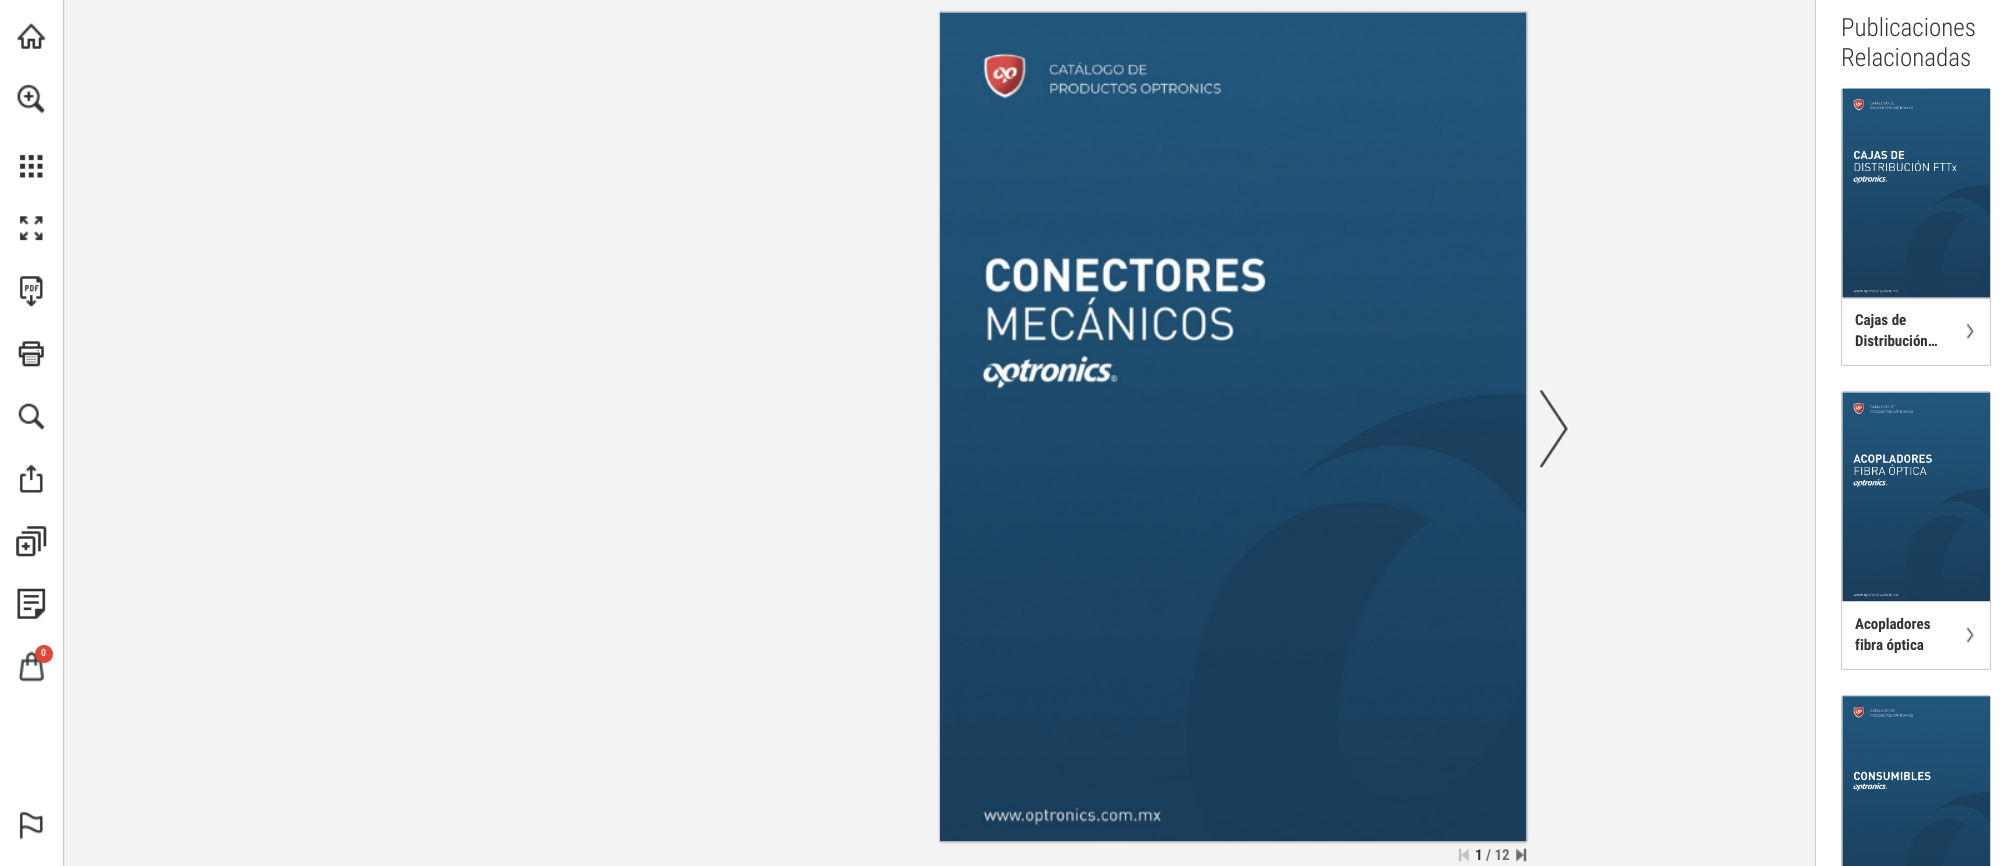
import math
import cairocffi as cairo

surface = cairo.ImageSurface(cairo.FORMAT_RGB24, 2016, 866)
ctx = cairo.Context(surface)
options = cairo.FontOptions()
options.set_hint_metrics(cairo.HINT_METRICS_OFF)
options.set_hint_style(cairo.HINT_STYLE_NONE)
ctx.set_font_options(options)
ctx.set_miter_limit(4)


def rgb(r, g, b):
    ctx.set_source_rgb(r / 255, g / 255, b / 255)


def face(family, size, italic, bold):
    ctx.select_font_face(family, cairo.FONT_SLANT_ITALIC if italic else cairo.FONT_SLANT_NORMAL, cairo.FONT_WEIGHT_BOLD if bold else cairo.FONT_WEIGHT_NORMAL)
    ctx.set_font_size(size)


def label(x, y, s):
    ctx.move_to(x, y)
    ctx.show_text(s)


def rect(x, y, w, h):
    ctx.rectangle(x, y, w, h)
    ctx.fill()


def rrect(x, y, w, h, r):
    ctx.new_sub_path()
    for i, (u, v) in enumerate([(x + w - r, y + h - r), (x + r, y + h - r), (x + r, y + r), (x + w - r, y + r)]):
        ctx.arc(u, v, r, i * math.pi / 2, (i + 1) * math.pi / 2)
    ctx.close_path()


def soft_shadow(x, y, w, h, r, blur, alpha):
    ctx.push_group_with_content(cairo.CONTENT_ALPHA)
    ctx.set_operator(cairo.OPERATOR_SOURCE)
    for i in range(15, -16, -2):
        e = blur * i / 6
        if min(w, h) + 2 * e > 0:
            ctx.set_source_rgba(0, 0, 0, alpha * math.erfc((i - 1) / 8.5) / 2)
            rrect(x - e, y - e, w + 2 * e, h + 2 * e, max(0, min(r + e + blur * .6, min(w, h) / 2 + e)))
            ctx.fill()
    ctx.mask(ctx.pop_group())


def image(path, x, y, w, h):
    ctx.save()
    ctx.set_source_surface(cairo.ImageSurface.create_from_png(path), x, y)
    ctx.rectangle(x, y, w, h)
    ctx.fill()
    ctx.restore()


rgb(255, 255, 255)
ctx.paint()
rgb(243, 243, 243)
rect(63, 0, 1752, 866)
rgb(0, 0, 0)
soft_shadow(1, 0, 63, 866, 0, 0.5, 0.2)
rgb(255, 255, 255)
rect(0, 0, 63, 866)
image('image0.png', 17, 23, 29, 26)
image('image1.png', 17, 84, 29, 30)
image('image2.png', 19, 154, 24, 24)
image('image3.png', 19, 216, 24, 25)
image('image4.png', 19, 276, 24, 31)
image('image5.png', 18, 341, 26, 26)
image('image6.png', 18, 403, 28, 28)
image('image7.png', 19, 464, 24, 29)
image('image8.png', 16, 526, 31, 31)
image('image9.png', 17, 588, 29, 31)
image('image10.png', 18, 651, 27, 31)
ctx.save()
ctx.set_fill_rule(cairo.FILL_RULE_EVEN_ODD)
ctx.new_path()
ctx.move_to(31, 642)
ctx.line_to(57, 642)
ctx.line_to(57, 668)
ctx.line_to(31, 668)
ctx.close_path()
ctx.move_to(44, 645)
ctx.curve_to(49, 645, 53, 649, 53, 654)
ctx.curve_to(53, 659, 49, 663, 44, 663)
ctx.curve_to(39, 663, 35, 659, 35, 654)
ctx.curve_to(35, 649, 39, 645, 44, 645)
ctx.close_path()
ctx.clip()
rgb(0, 0, 0)
soft_shadow(35, 646, 18, 18, 9, 1, 0.1)
ctx.restore()
ctx.set_source_rgba(0.871, 0.247, 0.18, 0.95)
ctx.arc(44, 654, 9, 0, 2 * math.pi)
ctx.fill()
face('Roboto Condensed Medium', 10, 0, 0)
rgb(255, 255, 255)
label(41, 656, '0')
image('image11.png', 19, 811, 24, 28)
rgb(204, 204, 204)
rect(1815, 0, 1, 866)
face('Roboto Condensed Light', 25, 0, 0)
rgb(51, 51, 51)
label(1841, 36, 'Publicaciones')
label(1841, 66, 'Relacionadas')
rrect(1841.5, 88.5, 149, 277, 2)
rgb(204, 204, 204)
ctx.set_line_width(1)
ctx.stroke()
image('image12.png', 1842, 88, 148, 210)
rect(1843, 298, 147, 1)
image('image13.png', 1966, 323, 8, 16)
face('Roboto Condensed', 15, 0, 1)
rgb(51, 51, 51)
label(1855, 325, 'Cajas de')
label(1855, 346, 'Distribución…')
rrect(1841.5, 391.5, 149, 278, 2)
rgb(204, 204, 204)
ctx.stroke()
image('image14.png', 1842, 392, 148, 210)
rect(1843, 601, 147, 1)
image('image15.png', 1966, 627, 8, 16)
rgb(51, 51, 51)
label(1855, 629, 'Acopladores')
label(1855, 650, 'fibra óptica')
rrect(1841.5, 695.5, 149, 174, 2)
rgb(204, 204, 204)
ctx.stroke()
image('image16.png', 1842, 696, 148, 170)
rgb(18, 18, 18)
soft_shadow(938, 10, 591, 834, 4, 1, 0.05)
rgb(255, 255, 255)
rrect(939, 11, 589, 832, 2.5)
ctx.fill()
rrect(939.5, 11.5, 588, 831, 2)
ctx.set_source_rgba(0, 0, 0, 0.2)
ctx.stroke()
image('image18.png', 940, 13, 587, 829)
image('image17.png', 940, 12, 587, 830)
image('image19.png', 1538, 388, 31, 82)
image('image20.png', 1458, 848, 11, 14)
rgb(51, 51, 51)
label(1475, 860, '1')
rgb(109, 109, 109)
label(1486, 860, '/ 12')
image('image21.png', 1516, 848, 11, 14)
surface.write_to_png('render.png')
